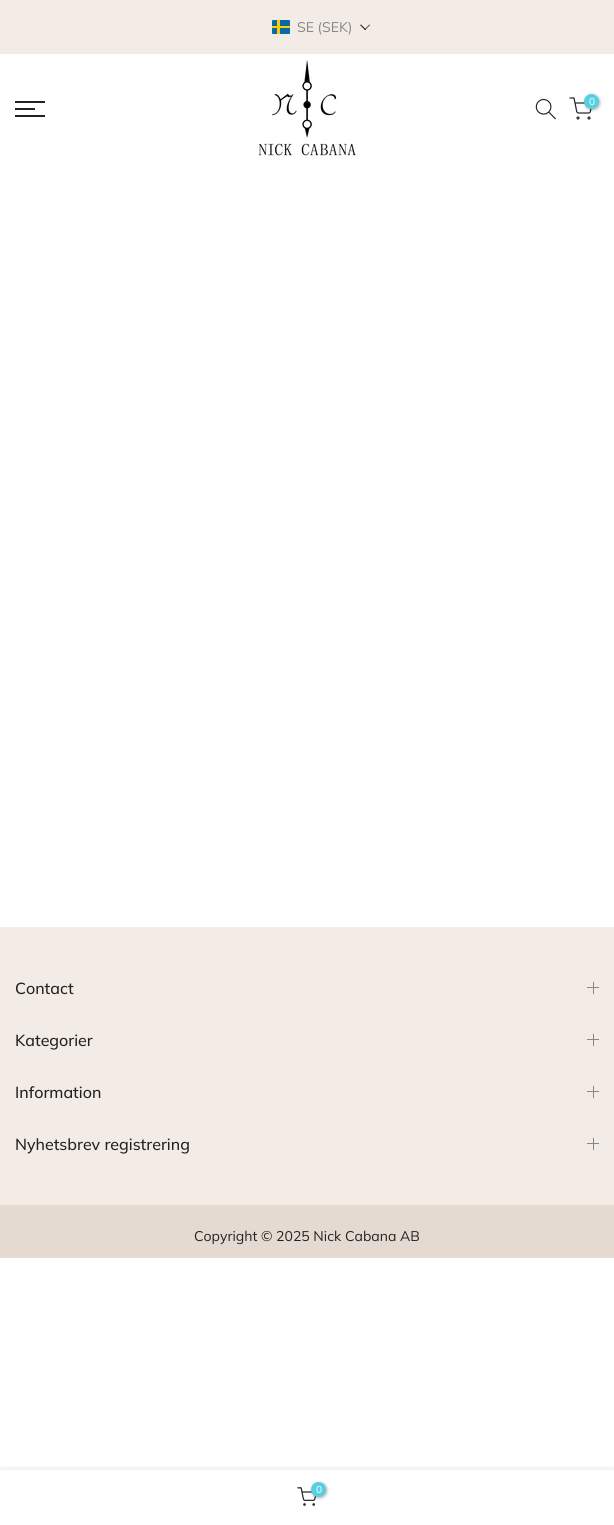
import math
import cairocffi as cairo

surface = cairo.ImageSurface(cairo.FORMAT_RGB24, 614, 1525)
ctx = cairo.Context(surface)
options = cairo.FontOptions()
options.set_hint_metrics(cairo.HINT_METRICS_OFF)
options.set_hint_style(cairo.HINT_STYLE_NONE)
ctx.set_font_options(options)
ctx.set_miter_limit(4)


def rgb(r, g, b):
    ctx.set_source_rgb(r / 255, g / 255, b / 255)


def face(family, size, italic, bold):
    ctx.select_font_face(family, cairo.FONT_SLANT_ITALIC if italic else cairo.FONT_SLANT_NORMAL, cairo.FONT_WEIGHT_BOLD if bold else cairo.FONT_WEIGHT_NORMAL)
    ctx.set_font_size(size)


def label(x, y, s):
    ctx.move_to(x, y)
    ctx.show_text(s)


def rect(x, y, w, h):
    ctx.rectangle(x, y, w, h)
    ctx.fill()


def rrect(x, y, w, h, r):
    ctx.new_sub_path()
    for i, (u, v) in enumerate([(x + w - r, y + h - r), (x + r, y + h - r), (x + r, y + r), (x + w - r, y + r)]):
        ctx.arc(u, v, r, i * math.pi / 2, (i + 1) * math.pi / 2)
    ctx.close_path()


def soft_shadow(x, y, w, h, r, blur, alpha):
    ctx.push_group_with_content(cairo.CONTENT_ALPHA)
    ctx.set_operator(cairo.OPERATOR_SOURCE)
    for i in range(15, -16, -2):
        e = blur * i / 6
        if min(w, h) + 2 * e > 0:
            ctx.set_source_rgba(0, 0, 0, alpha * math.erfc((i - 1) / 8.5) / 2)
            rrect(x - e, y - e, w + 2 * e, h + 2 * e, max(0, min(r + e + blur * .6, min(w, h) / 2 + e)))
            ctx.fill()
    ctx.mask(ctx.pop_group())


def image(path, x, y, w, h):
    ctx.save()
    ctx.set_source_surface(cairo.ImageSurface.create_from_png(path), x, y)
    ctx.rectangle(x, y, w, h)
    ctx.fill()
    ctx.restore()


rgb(255, 255, 255)
ctx.paint()
rgb(243, 236, 230)
rect(0, 0, 614, 54)
rgb(6, 106, 167)
rrect(272, 20, 18, 14, 1)
ctx.fill()
rgb(254, 204, 0)
rect(272, 26, 18, 2)
rect(277, 20, 3, 14)
face('Muli', 14, 0, 0)
rgb(135, 135, 135)
label(297, 32, 'SE (SEK)')
rgb(24, 24, 23)
ctx.new_path()
ctx.move_to(369.5, 24.5)
ctx.line_to(370, 25)
ctx.line_to(365, 30)
ctx.line_to(364.5, 29.5)
ctx.close_path()
ctx.fill()
ctx.new_path()
ctx.move_to(361, 24.5)
ctx.line_to(366, 29.5)
ctx.line_to(365, 30)
ctx.line_to(360, 25)
ctx.close_path()
ctx.fill()
rgb(34, 34, 34)
rect(15, 101, 30, 2)
rect(15, 108, 20, 2)
rect(15, 115, 30, 2)
image('image0.png', 257, 60, 99, 99)
image('image1.png', 535, 98, 21, 22)
image('image2.png', 569, 97, 23, 23)
rgb(0, 0, 0)
soft_shadow(585, 95, 15, 15, 7.5, 1.5, 0.3)
rgb(86, 207, 225)
ctx.arc(591.5, 101.5, 7.5, 0, 2 * math.pi)
ctx.fill()
face('Muli', 10, 0, 0)
rgb(255, 255, 255)
label(589, 105, '0')
rgb(243, 236, 230)
rect(0, 927, 614, 278)
face('Muli Medium', 16, 0, 0)
rgb(34, 34, 34)
label(15, 994, 'Contact')
rgb(135, 135, 135)
rect(593, 982, 1, 12)
rect(587, 987, 12, 1)
rgb(34, 34, 34)
label(15, 1046, 'Kategorier')
rgb(135, 135, 135)
rect(593, 1034, 1, 12)
rect(587, 1039, 12, 1)
rgb(34, 34, 34)
label(15, 1098, 'Information')
rgb(135, 135, 135)
rect(593, 1086, 1, 12)
rect(587, 1091, 12, 1)
rgb(34, 34, 34)
label(15, 1150, 'Nyhetsbrev registrering')
rgb(135, 135, 135)
rect(593, 1138, 1, 12)
rect(587, 1143, 12, 1)
rgb(229, 218, 209)
rect(0, 1205, 614, 53)
face('Muli', 14, 0, 0)
rgb(34, 34, 34)
label(194, 1241, 'Copyright © 2025 Nick Cabana AB')
ctx.save()
ctx.rectangle(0, 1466, 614, 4)
ctx.clip()
rgb(0, 0, 0)
soft_shadow(0, 1470, 614, 55, 0, 4.5, 0.12)
ctx.restore()
image('image3.png', 297, 1487, 19, 19)
rgb(0, 0, 0)
soft_shadow(312, 1483, 15, 15, 7.5, 1.5, 0.3)
rgb(86, 207, 225)
ctx.arc(318.5, 1489.5, 7.5, 0, 2 * math.pi)
ctx.fill()
face('Muli', 10, 0, 0)
rgb(255, 255, 255)
label(316, 1493, '0')
surface.write_to_png('render.png')
